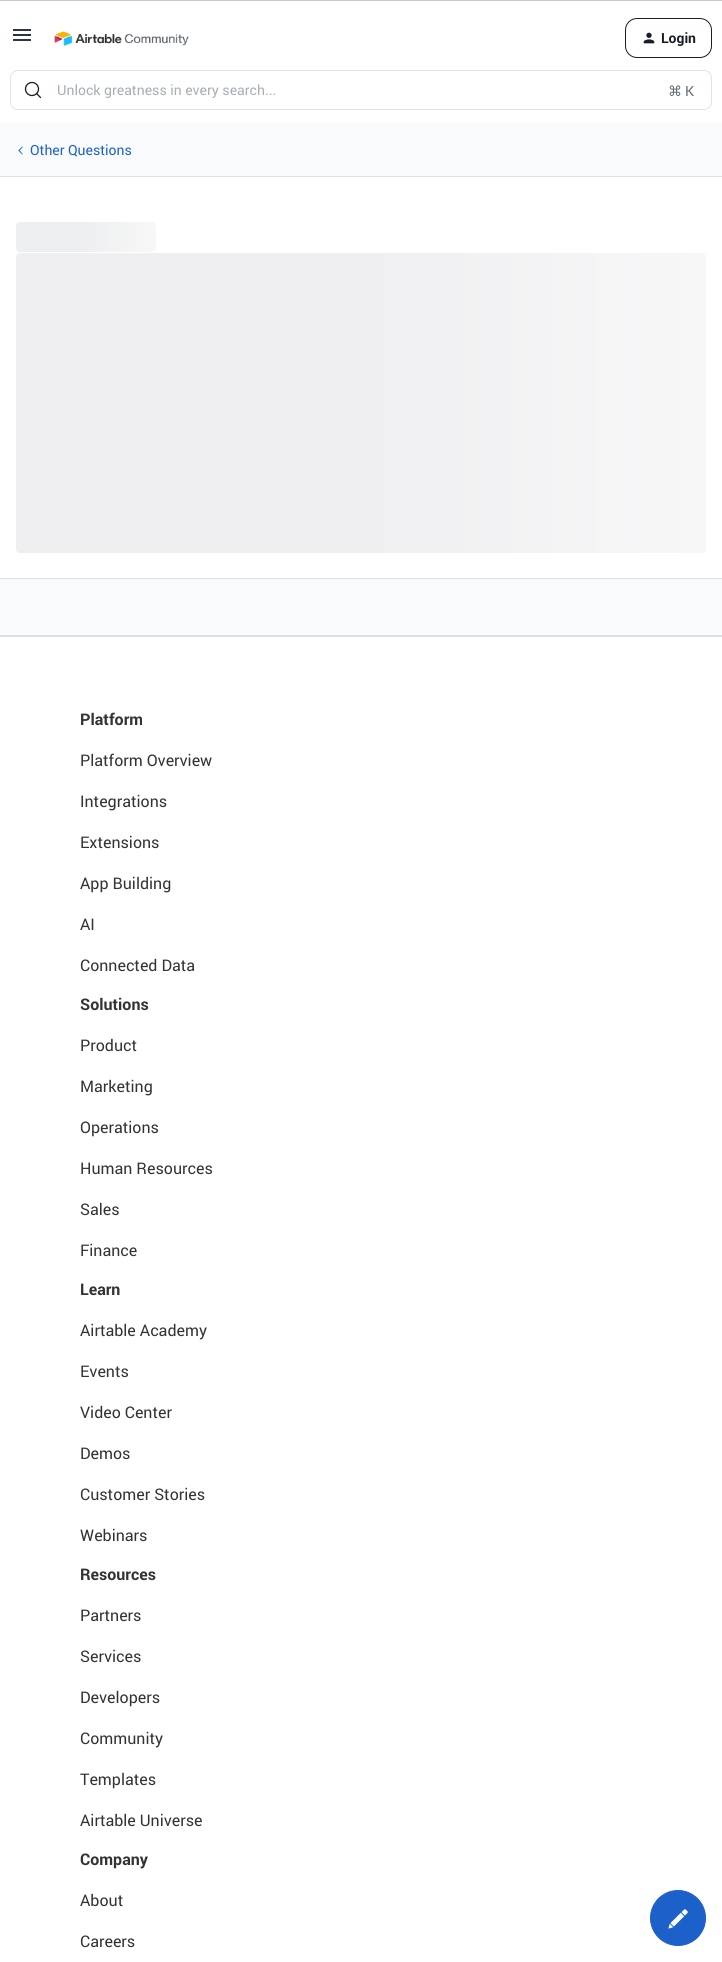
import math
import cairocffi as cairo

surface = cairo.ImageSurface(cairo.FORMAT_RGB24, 722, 1962)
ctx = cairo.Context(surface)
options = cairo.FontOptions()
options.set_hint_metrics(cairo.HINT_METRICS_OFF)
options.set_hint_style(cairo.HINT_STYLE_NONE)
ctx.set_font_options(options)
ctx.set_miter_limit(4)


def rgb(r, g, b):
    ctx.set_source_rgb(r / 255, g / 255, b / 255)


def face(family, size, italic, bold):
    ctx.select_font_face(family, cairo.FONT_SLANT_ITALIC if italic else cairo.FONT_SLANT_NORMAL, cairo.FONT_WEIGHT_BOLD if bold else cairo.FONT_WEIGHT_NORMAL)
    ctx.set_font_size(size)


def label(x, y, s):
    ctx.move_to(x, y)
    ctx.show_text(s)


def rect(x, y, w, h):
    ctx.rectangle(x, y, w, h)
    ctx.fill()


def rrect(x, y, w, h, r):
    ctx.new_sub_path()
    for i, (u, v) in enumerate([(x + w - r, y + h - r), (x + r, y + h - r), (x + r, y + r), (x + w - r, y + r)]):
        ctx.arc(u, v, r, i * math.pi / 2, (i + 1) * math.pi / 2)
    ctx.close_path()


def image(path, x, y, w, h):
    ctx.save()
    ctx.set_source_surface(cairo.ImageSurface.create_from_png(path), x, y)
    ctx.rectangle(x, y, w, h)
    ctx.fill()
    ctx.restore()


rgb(248, 250, 252)
ctx.paint()
rgb(255, 255, 255)
rect(0, 1, 722, 122)
rgb(196, 199, 205)
rect(0, 0, 722, 1)
image('image0.png', 13, 29, 18, 12)
image('image1.png', 54, 31, 135, 15)
rrect(625.5, 18.5, 86, 39, 11.5)
rgb(24, 29, 38)
ctx.set_line_width(1)
ctx.stroke()
image('image2.png', 643, 32, 12, 12)
face('Roboto', 14, 0, 1)
label(661, 43, 'Login')
rrect(10.5, 70.5, 701, 39, 7.5)
rgb(224, 226, 230)
ctx.stroke()
ctx.arc(32, 89, 6.5, 0, 2 * math.pi)
rgb(24, 31, 38)
ctx.set_line_width(1.3)
ctx.stroke()
ctx.new_path()
ctx.move_to(36.5, 93.5)
ctx.line_to(40.5, 97.5)
ctx.set_line_cap(cairo.LINE_CAP_ROUND)
ctx.stroke()
face('Roboto', 14, 0, 0)
rgb(167, 174, 181)
label(57, 95, 'Unlock greatness in every search...')
face('DejaVu Sans', 14, 0, 0)
rgb(95, 108, 122)
label(668, 96, '⌘')
face('Roboto', 14, 0, 0)
label(685, 96, 'K')
image('image3.png', 18, 146, 5, 9)
rgb(27, 97, 201)
label(30, 155, 'Other Questions')
rgb(255, 255, 255)
rect(0, 177, 722, 401)
rgb(224, 226, 230)
rect(0, 176, 722, 1)
rect(0, 578, 722, 1)
gradient = cairo.LinearGradient(16, 237, 296, 237)
gradient.add_color_stop_rgba(0.25, 0.933, 0.937, 0.941, 1)
gradient.add_color_stop_rgba(0.5, 0.969, 0.969, 0.973, 1)
gradient.add_color_stop_rgba(0.75, 0.933, 0.937, 0.941, 1)
ctx.set_source(gradient)
rrect(16, 222, 140, 30, 4)
ctx.fill()
gradient = cairo.LinearGradient(16, 403, 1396, 403)
gradient.add_color_stop_rgba(0.25, 0.937, 0.937, 0.945, 1)
gradient.add_color_stop_rgba(0.5, 0.969, 0.969, 0.973, 1)
gradient.add_color_stop_rgba(0.75, 0.937, 0.937, 0.945, 1)
ctx.set_source(gradient)
rrect(16, 253, 690, 300, 4)
ctx.fill()
rgb(255, 255, 255)
rect(0, 637, 722, 1325)
rgb(222, 222, 222)
rect(0, 635, 722, 2)
face('Roboto', 16, 0, 1)
rgb(51, 51, 51)
label(80, 725, 'Platform')
face('Roboto', 16, 0, 0)
label(80, 766, 'Platform Overview')
label(80, 807, 'Integrations')
label(80, 848, 'Extensions')
label(80, 889, 'App Building')
label(80, 930, 'AI')
label(80, 971, 'Connected Data')
face('Roboto', 16, 0, 1)
label(80, 1010, 'Solutions')
face('Roboto', 16, 0, 0)
label(80, 1051, 'Product')
label(80, 1092, 'Marketing')
label(80, 1133, 'Operations')
label(80, 1174, 'Human Resources')
label(80, 1215, 'Sales')
label(80, 1256, 'Finance')
face('Roboto', 16, 0, 1)
label(80, 1295, 'Learn')
face('Roboto', 16, 0, 0)
label(80, 1336, 'Airtable Academy')
label(80, 1377, 'Events')
label(80, 1418, 'Video Center')
label(80, 1459, 'Demos')
label(80, 1500, 'Customer Stories')
label(80, 1541, 'Webinars')
face('Roboto', 16, 0, 1)
label(80, 1580, 'Resources')
face('Roboto', 16, 0, 0)
label(80, 1621, 'Partners')
label(80, 1662, 'Services')
label(80, 1703, 'Developers')
label(80, 1744, 'Community')
label(80, 1785, 'Templates')
label(80, 1826, 'Airtable Universe')
face('Roboto', 16, 0, 1)
label(80, 1865, 'Company')
face('Roboto', 16, 0, 0)
label(80, 1906, 'About')
label(80, 1947, 'Careers')
rgb(27, 97, 201)
ctx.new_path()
ctx.arc(678, 1918, 27.5, 0, 2 * math.pi)
ctx.fill_preserve()
ctx.set_line_width(1)
ctx.set_line_cap(cairo.LINE_CAP_BUTT)
ctx.stroke()
image('image4.png', 668, 1909, 20, 20)
surface.write_to_png('render.png')
